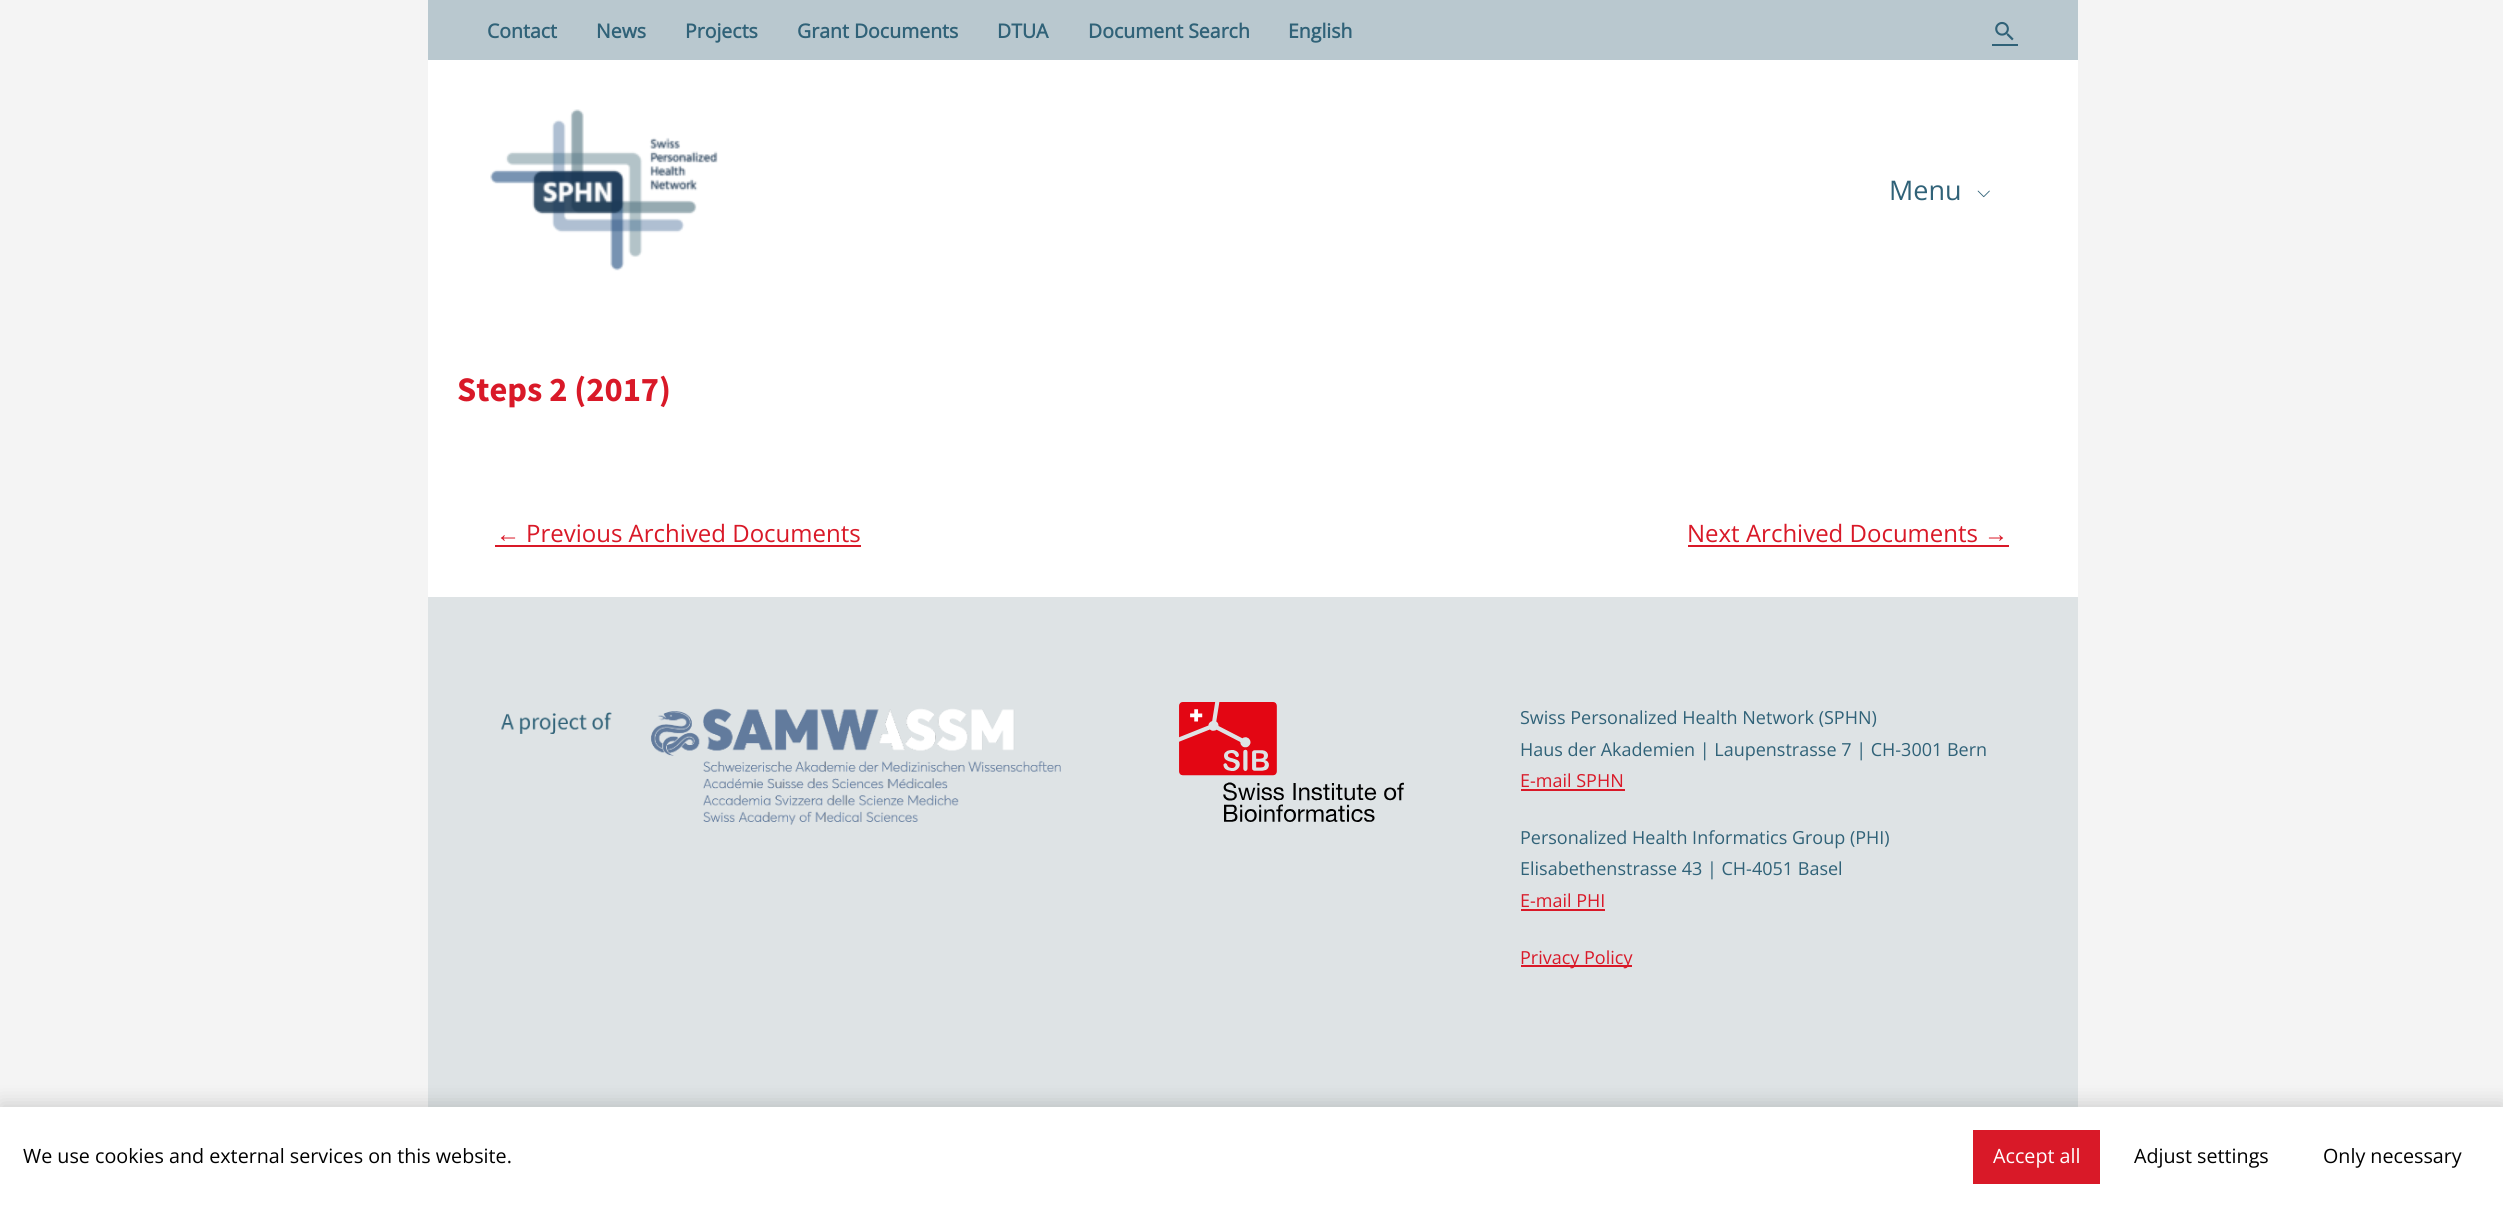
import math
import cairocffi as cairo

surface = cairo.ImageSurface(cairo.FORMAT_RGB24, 2503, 1206)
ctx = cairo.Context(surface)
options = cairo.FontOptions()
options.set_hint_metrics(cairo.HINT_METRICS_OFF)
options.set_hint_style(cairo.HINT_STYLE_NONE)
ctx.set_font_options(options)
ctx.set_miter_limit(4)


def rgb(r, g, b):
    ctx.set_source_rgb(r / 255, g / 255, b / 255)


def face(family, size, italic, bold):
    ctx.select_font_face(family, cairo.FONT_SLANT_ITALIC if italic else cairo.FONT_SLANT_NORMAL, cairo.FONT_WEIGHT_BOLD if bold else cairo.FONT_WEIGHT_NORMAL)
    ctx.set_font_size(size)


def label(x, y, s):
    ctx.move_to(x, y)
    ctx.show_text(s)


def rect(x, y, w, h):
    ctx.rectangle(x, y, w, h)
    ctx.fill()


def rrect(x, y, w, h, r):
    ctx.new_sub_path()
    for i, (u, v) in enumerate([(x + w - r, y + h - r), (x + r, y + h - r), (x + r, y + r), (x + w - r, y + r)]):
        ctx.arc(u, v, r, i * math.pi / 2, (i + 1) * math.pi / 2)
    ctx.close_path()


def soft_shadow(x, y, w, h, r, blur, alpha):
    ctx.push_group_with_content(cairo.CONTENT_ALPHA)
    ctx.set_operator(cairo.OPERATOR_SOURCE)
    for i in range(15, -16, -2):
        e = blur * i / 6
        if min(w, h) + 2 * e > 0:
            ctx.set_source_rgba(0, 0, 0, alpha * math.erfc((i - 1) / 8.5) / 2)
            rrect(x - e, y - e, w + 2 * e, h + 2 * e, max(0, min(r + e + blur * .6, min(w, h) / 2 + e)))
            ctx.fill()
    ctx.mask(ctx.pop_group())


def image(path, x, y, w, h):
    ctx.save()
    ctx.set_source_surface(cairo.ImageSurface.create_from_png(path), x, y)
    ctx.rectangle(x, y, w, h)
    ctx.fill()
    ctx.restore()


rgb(244, 244, 244)
ctx.paint()
rgb(185, 200, 207)
rect(428, 0, 1650, 60)
face('Open Sans', 19.5, 0, 1)
rgb(48, 98, 120)
label(487, 38, 'Contact')
label(596, 38, 'News')
label(685, 38, 'Projects')
label(797, 38, 'Grant Documents')
label(997, 38, 'DTUA')
label(1088, 38, 'Document Search')
label(1288, 38, 'English')
rect(1992, 44, 26, 2)
image('image0.png', 1995, 21, 19, 20)
rgb(255, 255, 255)
rect(428, 60, 1650, 537)
image('image1.png', 490, 109, 228, 162)
face('Open Sans', 27, 0, 0)
rgb(48, 98, 120)
label(1889, 200, 'Menu')
image('image2.png', 1977, 190, 13, 8)
face('Source Sans Pro', 34.5, 0, 1)
rgb(217, 25, 40)
label(457, 401, 'Steps 2 (2017)')
face('Liberation Sans', 24, 0, 0)
label(496, 542, '←')
rect(495, 545, 366, 2)
face('Open Sans', 24, 0, 0)
label(526, 542, 'Previous Archived Documents')
label(1687, 542, 'Next Archived Documents')
rect(1688, 545, 321, 2)
face('Liberation Sans', 24, 0, 0)
label(1984, 542, '→')
rgb(222, 227, 229)
rect(428, 597, 1650, 510)
image('image3.png', 501, 708, 560, 117)
image('image4.png', 1179, 702, 225, 120)
face('Open Sans', 18, 0, 0)
rgb(48, 98, 120)
label(1520, 724, 'Swiss Personalized Health Network (SPHN)')
label(1520, 756, 'Haus der Akademien | Laupenstrasse 7 | CH-3001 Bern')
rgb(217, 25, 40)
label(1520, 787, 'E-mail SPHN')
rect(1521, 789, 104, 2)
rgb(48, 98, 120)
label(1520, 844, 'Personalized Health Informatics Group (PHI)')
label(1520, 875, 'Elisabethenstrasse 43 | CH-4051 Basel')
rgb(217, 25, 40)
label(1520, 907, 'E-mail PHI')
rect(1521, 909, 84, 2)
rect(1521, 965, 111, 2)
label(1520, 964, 'Privacy Policy')
rgb(0, 0, 0)
soft_shadow(0, 1103, 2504, 99, 0, 10, 0.15)
rgb(255, 255, 255)
rect(0, 1107, 2503, 99)
face('Open Sans', 19.7, 0, 0)
rgb(0, 0, 0)
label(23, 1163, 'We use cookies and external services on this website.')
rgb(217, 25, 40)
rect(1973, 1130, 127, 54)
rgb(255, 255, 255)
label(1993, 1163, 'Accept all')
rgb(0, 0, 0)
label(2134, 1163, 'Adjust settings')
label(2323, 1163, 'Only necessary')
surface.write_to_png('render.png')
